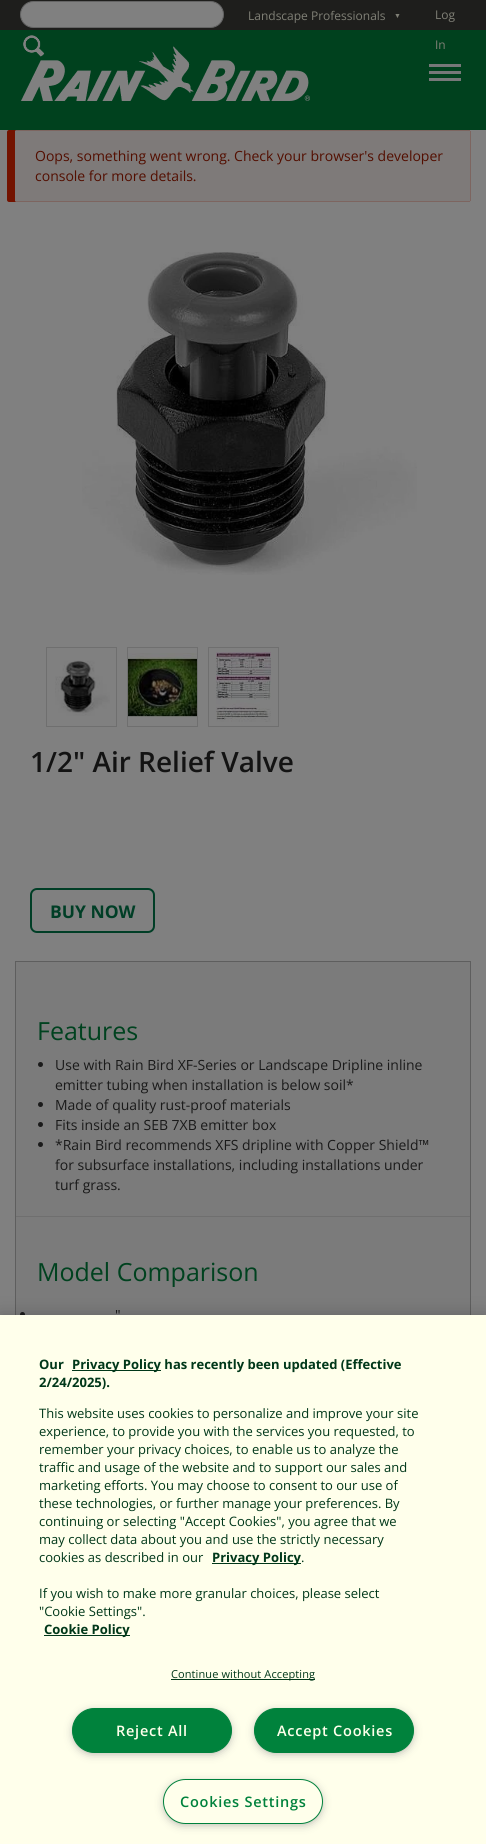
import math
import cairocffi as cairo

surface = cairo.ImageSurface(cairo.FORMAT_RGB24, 486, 1844)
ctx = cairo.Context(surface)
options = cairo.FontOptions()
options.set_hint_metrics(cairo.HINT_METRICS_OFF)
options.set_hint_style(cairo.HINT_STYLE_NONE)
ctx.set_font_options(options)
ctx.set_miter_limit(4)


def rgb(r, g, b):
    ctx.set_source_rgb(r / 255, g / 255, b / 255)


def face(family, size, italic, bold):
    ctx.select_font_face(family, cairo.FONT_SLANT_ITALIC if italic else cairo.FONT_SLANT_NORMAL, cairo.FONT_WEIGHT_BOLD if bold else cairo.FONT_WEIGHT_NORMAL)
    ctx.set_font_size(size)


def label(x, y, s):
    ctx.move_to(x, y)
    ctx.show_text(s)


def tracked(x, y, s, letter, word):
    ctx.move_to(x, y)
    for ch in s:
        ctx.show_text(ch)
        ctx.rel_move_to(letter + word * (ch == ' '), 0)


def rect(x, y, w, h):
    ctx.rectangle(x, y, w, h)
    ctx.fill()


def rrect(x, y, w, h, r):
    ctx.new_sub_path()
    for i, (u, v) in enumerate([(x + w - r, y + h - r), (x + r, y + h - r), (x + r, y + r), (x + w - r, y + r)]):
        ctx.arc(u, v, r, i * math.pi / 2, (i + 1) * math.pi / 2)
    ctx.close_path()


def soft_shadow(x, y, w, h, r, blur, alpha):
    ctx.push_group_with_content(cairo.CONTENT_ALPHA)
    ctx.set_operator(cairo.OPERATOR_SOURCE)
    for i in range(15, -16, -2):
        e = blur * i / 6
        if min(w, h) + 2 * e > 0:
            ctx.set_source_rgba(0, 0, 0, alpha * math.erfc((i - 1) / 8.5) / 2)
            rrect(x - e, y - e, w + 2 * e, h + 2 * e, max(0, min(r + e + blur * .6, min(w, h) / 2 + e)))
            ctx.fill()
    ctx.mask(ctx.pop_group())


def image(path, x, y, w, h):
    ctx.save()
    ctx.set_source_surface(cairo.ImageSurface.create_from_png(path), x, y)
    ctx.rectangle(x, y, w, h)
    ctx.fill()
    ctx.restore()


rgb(128, 128, 128)
ctx.paint()
rgb(0, 65, 30)
rect(0, 30, 486, 100)
rgb(30, 30, 28)
rect(0, 0, 486, 30)
rgb(128, 128, 128)
rrect(20.5, 1.5, 203, 26, 13)
ctx.fill_preserve()
rgb(100, 100, 100)
ctx.set_line_width(1)
ctx.stroke()
image('image0.png', 23, 35, 22, 22)
face('Open Sans', 12, 0, 0)
rgb(128, 128, 118)
label(248, 20, 'Landscape Professionals')
face('Liberation Serif', 7, 0, 0)
label(394, 18, '▼')
face('Open Sans', 12, 0, 0)
label(435, 19, 'Log')
label(435, 49, 'In')
image('image1.png', 21, 46, 289, 55)
rgb(118, 120, 121)
rect(429, 64, 32, 3)
rect(429, 71, 32, 3)
rect(429, 78, 32, 3)
rgb(115, 19, 0)
ctx.new_path()
ctx.move_to(9, 130)
ctx.curve_to(8, 130, 7, 131, 7, 132)
ctx.line_to(7, 200)
ctx.curve_to(7, 201, 8, 202, 9, 202)
ctx.line_to(17, 202)
ctx.curve_to(16, 202, 15, 201, 15, 200)
ctx.line_to(15, 131)
ctx.line_to(17, 130)
ctx.close_path()
ctx.fill()
rgb(126, 122, 121)
rrect(15, 130, 456, 72, 2)
ctx.fill()
rgb(125, 101, 96)
rect(16, 130, 454, 1)
rect(470, 131, 1, 70)
rect(16, 201, 454, 1)
face('Open Sans', 14, 0, 0)
rgb(83, 14, 0)
label(35, 161, 'Oops, something went wrong. Check your browser\'s developer')
label(35, 181, 'console for more details.')
image('image2.png', 82, 252, 335, 323)
ctx.rectangle(46.5, 647.5, 70, 79)
rgb(111, 111, 111)
ctx.stroke()
image('image3.png', 55, 660, 55, 56)
ctx.rectangle(127.5, 647.5, 70, 79)
ctx.stroke()
image('image4.png', 128, 653, 69, 64)
ctx.rectangle(208.5, 647.5, 70, 79)
ctx.stroke()
image('image5.png', 216, 652, 55, 70)
face('Open Sans SemiBold', 28, 0, 0)
rgb(19, 19, 19)
label(30, 772, '1/2" Air Relief Valve')
rrect(31, 889, 123, 43, 6)
rgb(0, 62, 38)
ctx.set_line_width(2)
ctx.stroke()
face('Open Sans', 17.5, 0, 1)
label(50, 918, 'BUY NOW')
rgb(123, 123, 123)
rect(16, 962, 454, 353)
rgb(94, 94, 94)
rect(15, 961, 456, 1)
rect(470, 961, 1, 354)
rect(15, 961, 1, 354)
rgb(111, 111, 111)
rect(16, 1216, 454, 1)
face('Open Sans', 25, 0, 0)
rgb(0, 66, 31)
label(37, 1040, 'Features')
rgb(26, 26, 26)
ctx.new_path()
ctx.arc(40.5, 1064.5, 2.5, 0, 2 * math.pi)
ctx.fill()
face('Open Sans', 14, 0, 0)
label(55, 1070, 'Use with Rain Bird XF-Series or Landscape Dripline inline')
label(55, 1090, 'emitter tubing when installation is below soil*')
ctx.new_path()
ctx.arc(40.5, 1104.5, 2.5, 0, 2 * math.pi)
ctx.fill()
label(55, 1110, 'Made of quality rust-proof materials')
ctx.new_path()
ctx.arc(40.5, 1124.5, 2.5, 0, 2 * math.pi)
ctx.fill()
label(55, 1130, 'Fits inside an SEB 7XB emitter box')
ctx.new_path()
ctx.arc(40.5, 1144.5, 2.5, 0, 2 * math.pi)
ctx.fill()
label(55, 1150, '*Rain Bird recommends XFS dripline with Copper Shield™')
label(55, 1170, 'for subsurface installations, including installations under')
label(55, 1190, 'turf grass.')
face('Open Sans', 25, 0, 0)
rgb(0, 66, 31)
label(37, 1281, 'Model Comparison')
rgb(26, 26, 26)
ctx.new_path()
ctx.arc(22.5, 1314.5, 2.5, 0, 2 * math.pi)
ctx.fill()
face('Open Sans', 14, 0, 0)
label(115, 1320, '"')
rgb(0, 0, 0)
soft_shadow(0, 1315, 486, 529, 0, 9, 0.2)
rgb(255, 255, 235)
rect(0, 1315, 486, 529)
face('Open Sans', 13, 0, 1)
rgb(0, 55, 25)
label(39, 1369, 'Our')
rect(72, 1370, 89, 1)
label(72, 1369, 'Privacy Policy has recently been updated (Effective')
label(39, 1387, '2/24/2025).')
face('Open Sans', 13, 0, 0)
label(39, 1418, 'This website uses cookies to personalize and improve your site')
label(39, 1436, 'experience, to provide you with the services you requested, to')
label(39, 1454, 'remember your privacy choices, to enable us to analyze the')
label(39, 1472, 'traffic and usage of the website and to support our sales and')
label(39, 1490, 'marketing efforts. You may choose to consent to our use of')
label(39, 1508, 'these technologies, or further manage your preferences. By')
label(39, 1526, 'continuing or selecting "Accept Cookies", you agree that we')
label(39, 1544, 'may collect data about you and use the strictly necessary')
label(39, 1562, 'cookies as described in our')
rect(212, 1563, 89, 1)
face('Open Sans', 13, 0, 1)
label(212, 1562, 'Privacy Policy')
face('Open Sans', 13, 0, 0)
label(301, 1562, '.')
label(39, 1598, 'If you wish to make more granular choices, please select')
label(39, 1616, '"Cookie Settings".')
rect(44, 1635, 86, 1)
face('Open Sans', 13, 0, 1)
label(44, 1634, 'Cookie Policy')
rect(171, 1679, 144, 1)
face('Open Sans', 11, 0, 0)
tracked(171, 1678, 'Continue without Accepting', 0.1, 0)
rgb(153, 153, 153)
soft_shadow(75, 1713, 154, 39, 19.5, 5, 1)
rgb(0, 130, 60)
rrect(72.5, 1708.5, 159, 44, 22)
ctx.fill_preserve()
ctx.set_line_width(1)
ctx.stroke()
face('Open Sans SemiBold', 14.5, 0, 0)
rgb(255, 255, 235)
tracked(116, 1736, 'Reject All', 0.75, 0)
rgb(153, 153, 153)
soft_shadow(257, 1713, 154, 39, 19.5, 5, 1)
rgb(0, 130, 60)
rrect(254.5, 1708.5, 159, 44, 22)
ctx.fill_preserve()
ctx.stroke()
rgb(255, 255, 235)
tracked(277, 1736, 'Accept Cookies', 0.75, 0)
rgb(153, 153, 153)
soft_shadow(166, 1784, 154, 39, 19.5, 5, 1)
rgb(255, 255, 235)
rrect(163.5, 1779.5, 159, 44, 22)
ctx.fill_preserve()
rgb(0, 130, 60)
ctx.stroke()
tracked(180, 1807, 'Cookies Settings', 0.75, 0)
surface.write_to_png('render.png')
